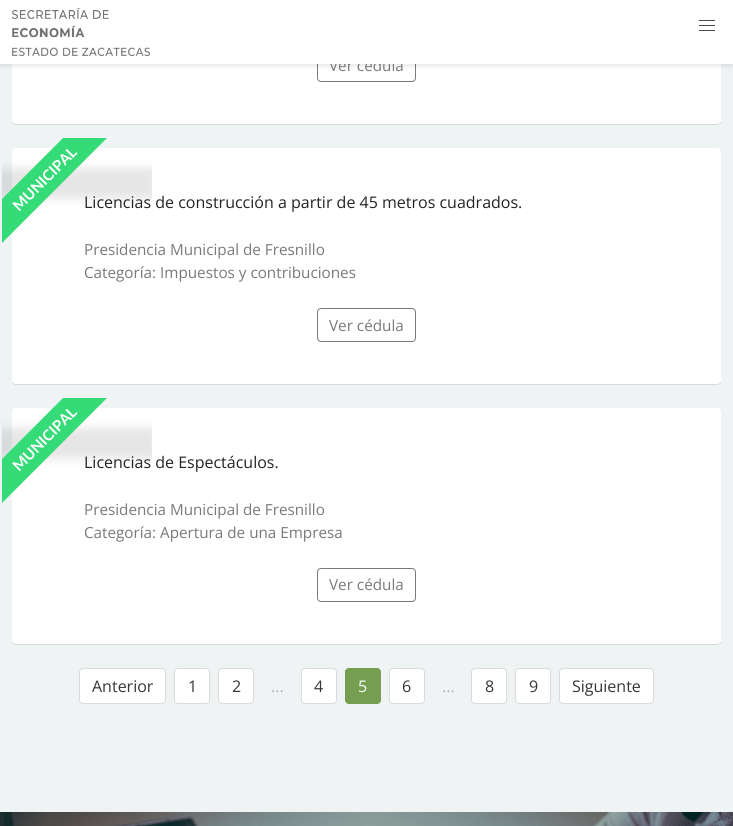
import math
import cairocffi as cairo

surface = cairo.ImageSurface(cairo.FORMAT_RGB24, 733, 826)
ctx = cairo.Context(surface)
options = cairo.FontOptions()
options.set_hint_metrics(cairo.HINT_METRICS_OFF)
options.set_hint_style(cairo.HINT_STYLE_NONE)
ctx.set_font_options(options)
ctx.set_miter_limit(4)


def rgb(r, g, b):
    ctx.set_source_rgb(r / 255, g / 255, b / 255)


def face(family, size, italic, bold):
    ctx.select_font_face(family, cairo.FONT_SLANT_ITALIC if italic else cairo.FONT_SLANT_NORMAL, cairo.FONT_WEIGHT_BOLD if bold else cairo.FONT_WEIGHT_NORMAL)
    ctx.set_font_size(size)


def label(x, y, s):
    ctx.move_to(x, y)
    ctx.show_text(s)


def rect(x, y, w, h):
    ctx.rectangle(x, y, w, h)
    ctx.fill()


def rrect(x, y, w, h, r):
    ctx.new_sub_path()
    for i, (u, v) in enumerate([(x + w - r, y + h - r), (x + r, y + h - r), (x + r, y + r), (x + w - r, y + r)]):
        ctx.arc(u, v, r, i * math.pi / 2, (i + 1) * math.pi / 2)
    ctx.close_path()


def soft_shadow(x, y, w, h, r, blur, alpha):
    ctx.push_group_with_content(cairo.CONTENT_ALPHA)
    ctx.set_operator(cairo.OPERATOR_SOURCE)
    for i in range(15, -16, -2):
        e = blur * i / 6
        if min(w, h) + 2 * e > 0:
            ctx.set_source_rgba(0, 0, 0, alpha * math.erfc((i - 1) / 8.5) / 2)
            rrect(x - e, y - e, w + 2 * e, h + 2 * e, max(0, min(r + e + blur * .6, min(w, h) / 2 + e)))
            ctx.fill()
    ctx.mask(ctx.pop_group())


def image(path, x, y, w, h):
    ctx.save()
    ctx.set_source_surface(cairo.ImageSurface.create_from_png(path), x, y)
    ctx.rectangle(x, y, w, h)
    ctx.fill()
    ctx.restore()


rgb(239, 243, 244)
ctx.paint()
rgb(215, 219, 220)
ctx.new_path()
ctx.move_to(12, 120)
ctx.curve_to(12, 123, 13, 125, 16, 125)
ctx.line_to(717, 125)
ctx.line_to(720, 124)
ctx.line_to(721, 123)
ctx.line_to(721, 120)
ctx.curve_to(721, 122, 719, 124, 717, 124)
ctx.line_to(16, 124)
ctx.curve_to(14, 124, 12, 122, 12, 120)
ctx.close_path()
ctx.fill()
rgb(255, 255, 255)
rrect(12, -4, 709, 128, 4)
ctx.fill()
rrect(317.5, 48.5, 98, 33, 3.5)
rgb(123, 121, 122)
ctx.set_line_width(1)
ctx.stroke()
rgb(0, 0, 0)
soft_shadow(0, 2, 733, 64, 0, 2.5, 0.1)
face('Open Sans', 15.25, 0, 0)
rgb(123, 121, 122)
label(329, 71, 'Ver cédula')
rgb(255, 255, 255)
rect(0, 0, 733, 64)
image('image0.png', 12, 8, 138, 48)
rgb(74, 74, 74)
rect(699, 20, 16, 1)
rect(699, 25, 16, 1)
rect(699, 30, 16, 1)
rgb(215, 219, 220)
ctx.new_path()
ctx.move_to(12, 380)
ctx.curve_to(12, 383, 13, 385, 16, 385)
ctx.line_to(717, 385)
ctx.line_to(720, 384)
ctx.line_to(721, 383)
ctx.line_to(721, 380)
ctx.curve_to(721, 382, 719, 384, 717, 384)
ctx.line_to(16, 384)
ctx.curve_to(14, 384, 12, 382, 12, 380)
ctx.close_path()
ctx.fill()
rgb(255, 255, 255)
rrect(12, 148, 709, 236, 4)
ctx.fill()
ctx.save()
ctx.rectangle(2, 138, 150, 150)
ctx.clip()
rgb(0, 0, 0)
soft_shadow(-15, 168, 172, 31, 0, 5, 0.1)
ctx.restore()
face('Open Sans', 16, 0, 0)
rgb(36, 36, 36)
label(84, 208, 'Licencias de construcción a partir de 45 metros cuadrados.')
ctx.save()
ctx.rectangle(2, 138, 150, 150)
ctx.clip()
rgb(52, 219, 119)
ctx.new_path()
ctx.move_to(-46, 247)
ctx.line_to(113, 88)
ctx.line_to(135, 110)
ctx.line_to(-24, 269)
ctx.close_path()
ctx.fill()
ctx.restore()
face('Lato', 15, 0, 1)
rgb(255, 255, 255)
ctx.save()
ctx.translate(19, 212)
ctx.rotate(-45 * math.pi / 180)
label(0, 0, 'MUNICIPAL')
ctx.restore()
face('Open Sans', 15.25, 0, 0)
rgb(123, 121, 122)
label(84, 255, 'Presidencia Municipal de Fresnillo')
label(84, 278, 'Categoría: Impuestos y contribuciones')
rrect(317.5, 308.5, 98, 33, 3.5)
ctx.stroke()
label(329, 331, 'Ver cédula')
rgb(215, 219, 220)
ctx.new_path()
ctx.move_to(12, 640)
ctx.curve_to(12, 643, 13, 645, 16, 645)
ctx.line_to(717, 645)
ctx.line_to(720, 644)
ctx.line_to(721, 643)
ctx.line_to(721, 640)
ctx.curve_to(721, 642, 719, 644, 717, 644)
ctx.line_to(16, 644)
ctx.curve_to(14, 644, 12, 642, 12, 640)
ctx.close_path()
ctx.fill()
rgb(255, 255, 255)
rrect(12, 408, 709, 236, 4)
ctx.fill()
ctx.save()
ctx.rectangle(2, 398, 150, 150)
ctx.clip()
rgb(0, 0, 0)
soft_shadow(-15, 428, 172, 31, 0, 5, 0.1)
ctx.restore()
face('Open Sans', 16, 0, 0)
rgb(36, 36, 36)
label(84, 468, 'Licencias de Espectáculos.')
ctx.save()
ctx.rectangle(2, 398, 150, 150)
ctx.clip()
rgb(52, 219, 119)
ctx.new_path()
ctx.move_to(-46, 507)
ctx.line_to(113, 348)
ctx.line_to(135, 370)
ctx.line_to(-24, 529)
ctx.close_path()
ctx.fill()
ctx.restore()
face('Lato', 15, 0, 1)
rgb(255, 255, 255)
ctx.save()
ctx.translate(19, 472)
ctx.rotate(-45 * math.pi / 180)
label(0, 0, 'MUNICIPAL')
ctx.restore()
face('Open Sans', 15.25, 0, 0)
rgb(123, 121, 122)
label(84, 515, 'Presidencia Municipal de Fresnillo')
label(84, 538, 'Categoría: Apertura de una Empresa')
rrect(317.5, 568.5, 98, 33, 3.5)
ctx.stroke()
label(329, 590, 'Ver cédula')
rgb(255, 255, 255)
rrect(79.5, 668.5, 86, 35, 3.5)
ctx.fill_preserve()
rgb(219, 219, 219)
ctx.stroke()
face('Open Sans', 16, 0, 0)
rgb(54, 54, 54)
label(92, 692, 'Anterior')
rgb(255, 255, 255)
rrect(174.5, 668.5, 35, 35, 3.5)
ctx.fill_preserve()
rgb(219, 219, 219)
ctx.stroke()
rgb(54, 54, 54)
label(188, 692, '1')
rgb(255, 255, 255)
rrect(218.5, 668.5, 35, 35, 3.5)
ctx.fill_preserve()
rgb(219, 219, 219)
ctx.stroke()
rgb(54, 54, 54)
label(232, 692, '2')
rgb(181, 181, 181)
label(271, 692, '...')
rgb(255, 255, 255)
rrect(301.5, 668.5, 35, 35, 3.5)
ctx.fill_preserve()
rgb(219, 219, 219)
ctx.stroke()
rgb(54, 54, 54)
label(314, 692, '4')
rgb(117, 158, 81)
rrect(345.5, 668.5, 35, 35, 3.5)
ctx.fill_preserve()
ctx.stroke()
rgb(255, 255, 255)
label(358, 692, '5')
rrect(389.5, 668.5, 35, 35, 3.5)
ctx.fill_preserve()
rgb(219, 219, 219)
ctx.stroke()
rgb(54, 54, 54)
label(402, 692, '6')
rgb(181, 181, 181)
label(442, 692, '...')
rgb(255, 255, 255)
rrect(471.5, 668.5, 35, 35, 3.5)
ctx.fill_preserve()
rgb(219, 219, 219)
ctx.stroke()
rgb(54, 54, 54)
label(485, 692, '8')
rgb(255, 255, 255)
rrect(515.5, 668.5, 35, 35, 3.5)
ctx.fill_preserve()
rgb(219, 219, 219)
ctx.stroke()
rgb(54, 54, 54)
label(529, 692, '9')
rgb(255, 255, 255)
rrect(559.5, 668.5, 94, 35, 3.5)
ctx.fill_preserve()
rgb(219, 219, 219)
ctx.stroke()
rgb(54, 54, 54)
label(572, 692, 'Siguiente')
image('image1.png', 0, 812, 733, 14)
surface.write_to_png('render.png')
